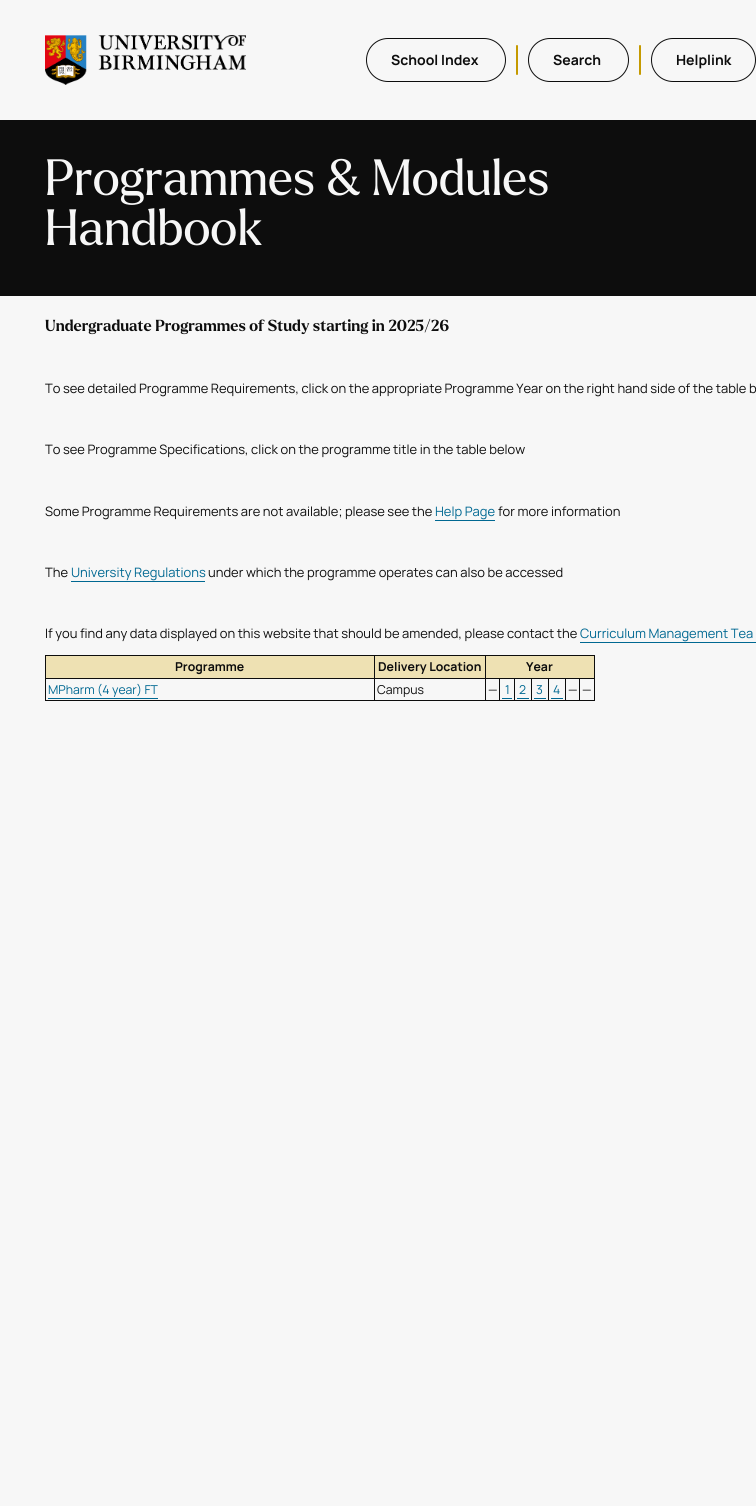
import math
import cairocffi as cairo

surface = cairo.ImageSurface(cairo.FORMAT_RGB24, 756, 1506)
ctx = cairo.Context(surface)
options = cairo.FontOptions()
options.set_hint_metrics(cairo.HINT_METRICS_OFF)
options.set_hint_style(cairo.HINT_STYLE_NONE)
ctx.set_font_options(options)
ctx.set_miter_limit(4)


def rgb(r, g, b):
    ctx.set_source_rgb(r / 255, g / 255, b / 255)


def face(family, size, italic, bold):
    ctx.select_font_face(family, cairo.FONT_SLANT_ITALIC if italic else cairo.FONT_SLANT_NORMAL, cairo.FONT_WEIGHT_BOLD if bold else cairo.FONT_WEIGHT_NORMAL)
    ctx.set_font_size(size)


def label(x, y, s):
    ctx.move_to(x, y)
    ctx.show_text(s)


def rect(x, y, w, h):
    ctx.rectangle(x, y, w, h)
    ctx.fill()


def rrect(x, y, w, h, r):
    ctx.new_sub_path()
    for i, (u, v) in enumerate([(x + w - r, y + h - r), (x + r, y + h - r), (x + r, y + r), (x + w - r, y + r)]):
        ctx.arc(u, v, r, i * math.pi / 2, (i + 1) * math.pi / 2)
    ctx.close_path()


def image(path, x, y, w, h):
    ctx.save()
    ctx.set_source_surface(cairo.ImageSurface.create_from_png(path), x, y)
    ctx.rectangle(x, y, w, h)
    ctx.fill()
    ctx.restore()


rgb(247, 247, 247)
ctx.paint()
image('image0.png', 45, 35, 201, 50)
rrect(366.5, 38.5, 139, 43, 21.5)
rgb(13, 13, 13)
ctx.set_line_width(1)
ctx.stroke()
face('Manrope', 14, 0, 1)
label(391, 65, 'School Index')
rgb(197, 154, 0)
rrect(516, 45, 2, 30, 1)
ctx.fill()
rrect(528.5, 38.5, 100, 43, 21.5)
rgb(13, 13, 13)
ctx.stroke()
label(553, 65, 'Search')
rgb(197, 154, 0)
rrect(639, 45, 2, 30, 1)
ctx.fill()
rrect(651.5, 38.5, 104, 43, 21.5)
rgb(13, 13, 13)
ctx.stroke()
label(676, 65, 'Helplink')
rect(0, 120, 756, 176)
face('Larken', 49.6, 0, 0)
rgb(247, 247, 247)
label(45, 195, 'Programmes & Modules')
label(45, 245, 'Handbook')
face('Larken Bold', 15.55, 0, 1)
rgb(13, 13, 13)
label(45, 331, 'Undergraduate Programmes of Study starting in 2025/26')
face('Manrope', 12.95, 0, 0)
label(45, 393, 'To see detailed Programme Requirements, click on the appropriate Programme Year on the right hand side of the table b')
label(45, 454, 'To see Programme Specifications, click on the programme title in the table below')
label(45, 516, 'Some Programme Requirements are not available; please see the')
rgb(0, 104, 146)
label(435, 516, 'Help Page')
rect(435, 520, 60, 1)
rgb(13, 13, 13)
label(498, 516, 'for more information')
label(45, 577, 'The')
rgb(0, 104, 146)
label(71, 577, 'University Regulations')
rect(71, 581, 134, 1)
rgb(13, 13, 13)
label(208, 577, 'under which the programme operates can also be accessed')
label(45, 638, 'If you find any data displayed on this website that should be amended, please contact the')
rgb(0, 104, 146)
label(580, 638, 'Curriculum Management Tea')
rect(580, 642, 176, 1)
rgb(13, 13, 13)
rect(45, 655, 550, 1)
rect(594, 655, 1, 46)
rect(45, 700, 550, 1)
rect(45, 655, 1, 46)
rgb(238, 225, 179)
rect(46, 656, 328, 22)
face('Manrope', 12.25, 0, 1)
rgb(13, 13, 13)
label(175, 671, 'Programme')
rgb(238, 225, 179)
rect(375, 656, 110, 22)
rgb(13, 13, 13)
rect(579, 678, 16, 1)
rect(579, 678, 1, 23)
rect(565, 678, 15, 1)
rect(565, 678, 1, 23)
rect(548, 678, 18, 1)
rect(548, 678, 1, 23)
rect(531, 678, 18, 1)
rect(531, 678, 1, 23)
rect(514, 678, 18, 1)
rect(514, 678, 1, 23)
rect(499, 678, 16, 1)
rect(499, 678, 1, 23)
rect(485, 678, 15, 1)
rect(485, 678, 1, 23)
rect(374, 678, 112, 1)
rect(374, 678, 1, 23)
rect(45, 678, 330, 1)
rect(374, 655, 1, 24)
label(378, 671, 'Delivery Location')
rgb(238, 225, 179)
rect(486, 656, 108, 22)
rgb(13, 13, 13)
rect(485, 655, 1, 24)
label(526, 671, 'Year')
face('Manrope', 12.25, 0, 0)
rgb(0, 104, 146)
label(48, 694, 'MPharm (4 year) FT')
rect(48, 698, 110, 1)
rgb(13, 13, 13)
label(377, 694, 'Campus')
label(488, 694, '—')
rgb(0, 104, 146)
label(505, 694, '1')
rect(502, 698, 10, 1)
label(519, 694, '2')
rect(517, 698, 12, 1)
label(536, 694, '3')
rect(534, 698, 12, 1)
label(553, 694, '4')
rect(551, 698, 12, 1)
rgb(13, 13, 13)
label(568, 694, '—')
label(582, 694, '—')
surface.write_to_png('render.png')
